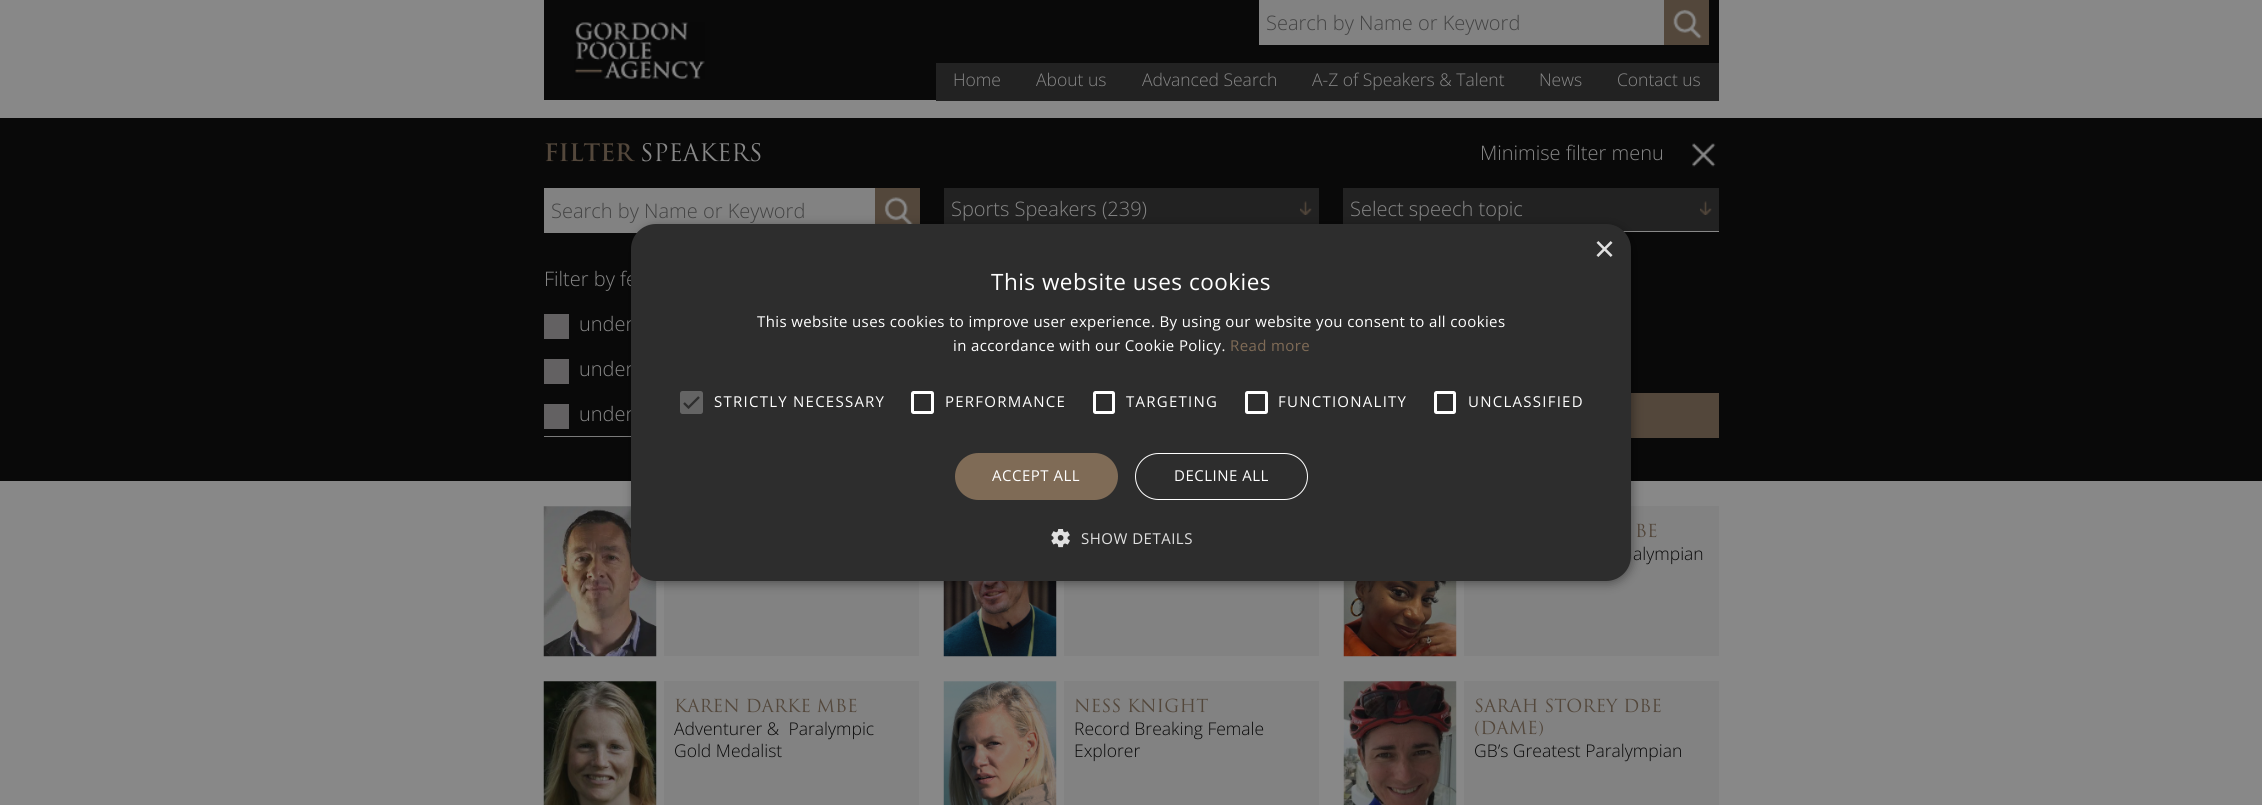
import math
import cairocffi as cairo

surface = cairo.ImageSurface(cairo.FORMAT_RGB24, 2262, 805)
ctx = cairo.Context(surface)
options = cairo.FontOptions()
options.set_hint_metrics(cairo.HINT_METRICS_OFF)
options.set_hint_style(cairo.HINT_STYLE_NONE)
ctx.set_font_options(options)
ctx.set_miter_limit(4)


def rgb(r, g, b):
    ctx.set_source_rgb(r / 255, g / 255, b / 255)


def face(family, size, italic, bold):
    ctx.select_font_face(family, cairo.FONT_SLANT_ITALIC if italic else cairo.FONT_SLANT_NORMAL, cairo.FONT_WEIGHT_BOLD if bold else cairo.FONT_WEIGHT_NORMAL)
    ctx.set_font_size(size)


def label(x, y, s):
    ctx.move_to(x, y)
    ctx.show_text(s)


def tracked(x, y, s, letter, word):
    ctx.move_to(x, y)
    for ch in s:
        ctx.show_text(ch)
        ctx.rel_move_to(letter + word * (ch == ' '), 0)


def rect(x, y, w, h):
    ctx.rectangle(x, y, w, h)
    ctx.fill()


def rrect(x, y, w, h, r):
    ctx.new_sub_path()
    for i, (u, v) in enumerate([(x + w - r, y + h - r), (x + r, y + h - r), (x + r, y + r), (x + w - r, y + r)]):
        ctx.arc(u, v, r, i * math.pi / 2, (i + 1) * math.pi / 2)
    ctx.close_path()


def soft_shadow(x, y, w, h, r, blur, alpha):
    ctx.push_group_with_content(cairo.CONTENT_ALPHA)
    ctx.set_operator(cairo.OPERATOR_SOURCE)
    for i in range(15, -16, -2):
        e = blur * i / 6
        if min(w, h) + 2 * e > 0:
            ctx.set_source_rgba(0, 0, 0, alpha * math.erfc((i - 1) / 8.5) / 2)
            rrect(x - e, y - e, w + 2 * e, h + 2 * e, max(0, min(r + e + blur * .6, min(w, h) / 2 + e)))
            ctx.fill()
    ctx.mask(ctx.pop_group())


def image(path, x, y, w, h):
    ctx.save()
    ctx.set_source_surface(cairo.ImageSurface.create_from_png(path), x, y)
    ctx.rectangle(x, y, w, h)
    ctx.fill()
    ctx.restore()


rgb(136, 136, 136)
ctx.paint()
rgb(9, 9, 9)
rect(544, 0, 1175, 100)
image('image0.png', 574, 22, 131, 57)
rgb(130, 130, 130)
rect(1259, 0, 405, 45)
face('Open Sans Light', 20, 0, 0)
rgb(67, 67, 67)
label(1266, 30, 'Search by Name or Keyword')
rgb(83, 71, 59)
rect(1664, 0, 45, 45)
image('image1.png', 1673, 9, 29, 30)
rgb(34, 34, 34)
rect(936, 63, 783, 35)
rect(936, 98, 783, 3)
face('Open Sans Light', 17.5, 0, 0)
rgb(136, 136, 136)
label(953, 86, 'Home')
label(1036, 86, 'About us')
label(1142, 86, 'Advanced Search')
label(1312, 86, 'A-Z of Speakers & Talent')
label(1539, 86, 'News')
label(1617, 86, 'Contact us')
rgb(9, 9, 9)
rect(0, 118, 2262, 363)
face('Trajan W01', 23.5, 0, 1)
rgb(83, 71, 59)
label(544, 161, 'FILTER')
face('Trajan W01', 23.5, 0, 0)
rgb(136, 136, 136)
label(640, 161, 'SPEAKERS')
face('Open Sans Light', 20, 0, 0)
label(1480, 160, 'Minimise filter menu')
image('image2.png', 1692, 143, 24, 24)
rgb(130, 130, 130)
rect(544, 188, 331, 45)
rgb(67, 67, 67)
label(551, 218, 'Search by Name or Keyword')
rgb(83, 71, 59)
rect(875, 188, 45, 36)
image('image3.png', 884, 197, 29, 27)
rgb(34, 34, 34)
rect(944, 188, 375, 36)
rgb(136, 136, 136)
label(951, 216, 'Sports Speakers (239)')
image('image4.png', 1300, 201, 12, 14)
rgb(34, 34, 34)
rect(1343, 188, 376, 43)
rgb(136, 136, 136)
rect(1623, 231, 96, 1)
label(1350, 216, 'Select speech topic')
image('image4.png', 1700, 201, 12, 14)
rgb(122, 122, 122)
rect(544, 436, 87, 1)
rgb(136, 136, 136)
label(544, 286, 'Filter by fe')
rgb(99, 97, 98)
rect(544, 314, 25, 25)
rgb(136, 136, 136)
label(579, 331, 'under')
rgb(99, 97, 98)
rect(544, 359, 25, 25)
rgb(136, 136, 136)
label(579, 376, 'under')
rgb(99, 97, 98)
rect(544, 404, 25, 25)
rgb(136, 136, 136)
label(579, 421, 'under')
rgb(83, 71, 59)
rect(1631, 393, 88, 45)
image('image5.png', 543, 506, 114, 151)
rgb(130, 130, 130)
rect(664, 581, 255, 75)
rect(1464, 506, 255, 150)
face('Trajan W01', 17.5, 0, 0)
rgb(83, 71, 59)
label(1635, 537, 'BE')
face('Open Sans Light', 17.5, 0, 0)
rgb(9, 9, 9)
label(1633, 560, 'alympian')
image('image6.png', 1343, 581, 114, 76)
image('image7.png', 943, 581, 114, 76)
rgb(130, 130, 130)
rect(1064, 581, 255, 75)
image('image8.png', 543, 681, 114, 124)
rect(664, 681, 255, 124)
face('Trajan W01', 17.5, 0, 0)
rgb(83, 71, 59)
label(674, 712, 'KAREN DARKE MBE')
face('Open Sans Light', 17.5, 0, 0)
rgb(9, 9, 9)
label(674, 735, 'Adventurer &  Paralympic')
label(674, 757, 'Gold Medalist')
image('image9.png', 943, 681, 114, 124)
rgb(130, 130, 130)
rect(1064, 681, 255, 124)
face('Trajan W01', 17.5, 0, 0)
rgb(83, 71, 59)
label(1074, 712, 'NESS KNIGHT')
face('Open Sans Light', 17.5, 0, 0)
rgb(9, 9, 9)
label(1074, 735, 'Record Breaking Female')
label(1074, 757, 'Explorer')
image('image10.png', 1343, 681, 114, 124)
rgb(130, 130, 130)
rect(1464, 681, 255, 124)
face('Trajan W01', 17.5, 0, 0)
rgb(83, 71, 59)
label(1474, 712, 'SARAH STOREY DBE')
label(1474, 734, '(DAME)')
face('Open Sans Light', 17.5, 0, 0)
rgb(9, 9, 9)
label(1474, 757, 'GB’s Greatest Paralympian')
rgb(0, 0, 0)
soft_shadow(633, 226, 1000, 358, 25, 5, 0.35)
rgb(45, 45, 45)
rrect(631, 224, 1000, 357, 25)
ctx.fill()
face('Liberation Sans', 36, 0, 0)
rgb(224, 224, 224)
label(1594, 261, '×')
face('Open Sans', 22.5, 0, 0)
rgb(255, 255, 255)
tracked(991, 290, 'This website uses cookies', 0.5, 0)
face('Open Sans', 15, 0, 0)
tracked(757, 327, 'This website uses cookies to improve user experience. By using our website you consent to all cookies', 0.38, 0)
tracked(953, 351, 'in accordance with our Cookie Policy.', 0.38, 0)
rgb(127, 107, 86)
tracked(1230, 351, 'Read more', 0.38, 0)
rgb(100, 100, 100)
rrect(680, 391, 23, 23, 2.5)
ctx.fill()
ctx.new_path()
ctx.move_to(684, 403)
ctx.line_to(688.5, 407.5)
ctx.line_to(699, 397)
rgb(45, 45, 45)
ctx.set_line_width(2.3)
ctx.stroke()
rgb(255, 255, 255)
tracked(714, 407, 'STRICTLY NECESSARY', 1.25, 0)
rrect(912.5, 392.5, 20, 20, 1)
ctx.set_line_width(3)
ctx.stroke()
tracked(945, 407, 'PERFORMANCE', 1.25, 0)
rrect(1094.5, 392.5, 19, 20, 1)
ctx.stroke()
tracked(1126, 407, 'TARGETING', 1.25, 0)
rrect(1246.5, 392.5, 20, 20, 1)
ctx.stroke()
tracked(1278, 407, 'FUNCTIONALITY', 1.25, 0)
rrect(1435.5, 392.5, 19, 20, 1)
ctx.stroke()
tracked(1468, 407, 'UNCLASSIFIED', 1.25, 0)
rgb(127, 107, 86)
rrect(955, 453, 163, 47, 23.5)
ctx.fill()
rgb(255, 255, 255)
tracked(992, 481, 'ACCEPT ALL', 0.5, 0)
rrect(1135.5, 453.5, 172, 46, 23)
ctx.set_line_width(1)
ctx.stroke()
tracked(1174, 481, 'DECLINE ALL', 0.5, 0)
image('image11.png', 1051, 529, 19, 19)
rgb(224, 224, 224)
tracked(1081, 544, 'SHOW DETAILS', 0.5, 0)
surface.write_to_png('render.png')
